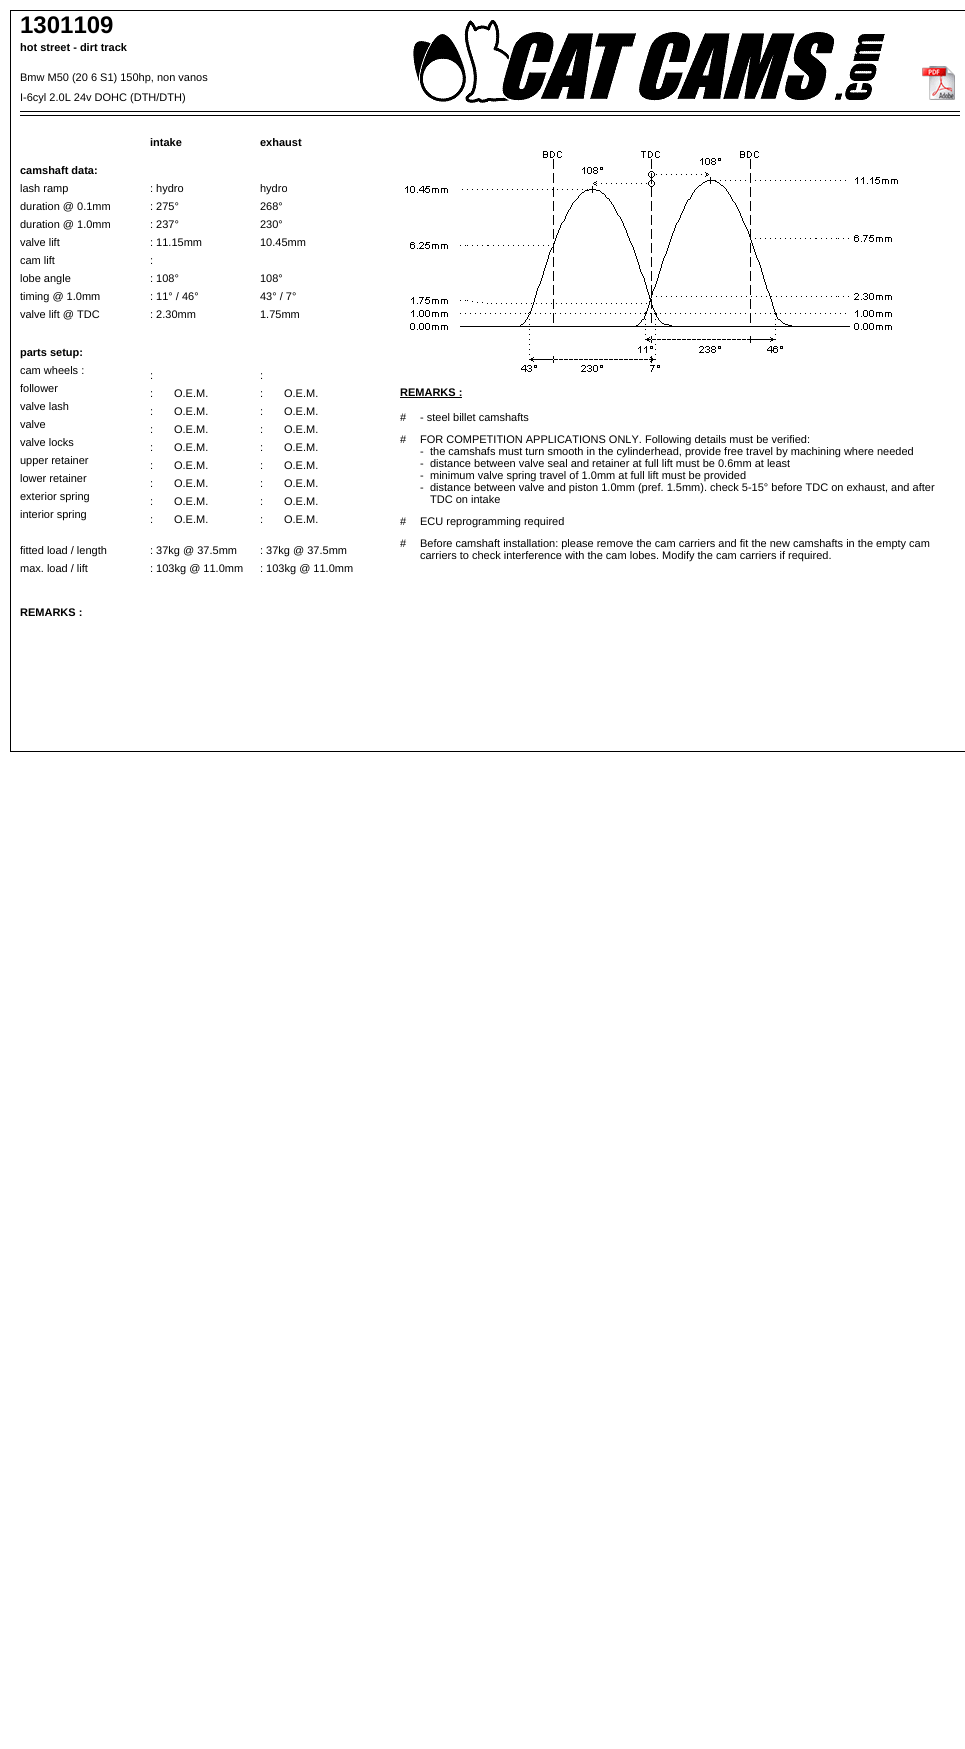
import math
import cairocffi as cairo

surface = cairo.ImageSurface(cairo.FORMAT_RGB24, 965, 1749)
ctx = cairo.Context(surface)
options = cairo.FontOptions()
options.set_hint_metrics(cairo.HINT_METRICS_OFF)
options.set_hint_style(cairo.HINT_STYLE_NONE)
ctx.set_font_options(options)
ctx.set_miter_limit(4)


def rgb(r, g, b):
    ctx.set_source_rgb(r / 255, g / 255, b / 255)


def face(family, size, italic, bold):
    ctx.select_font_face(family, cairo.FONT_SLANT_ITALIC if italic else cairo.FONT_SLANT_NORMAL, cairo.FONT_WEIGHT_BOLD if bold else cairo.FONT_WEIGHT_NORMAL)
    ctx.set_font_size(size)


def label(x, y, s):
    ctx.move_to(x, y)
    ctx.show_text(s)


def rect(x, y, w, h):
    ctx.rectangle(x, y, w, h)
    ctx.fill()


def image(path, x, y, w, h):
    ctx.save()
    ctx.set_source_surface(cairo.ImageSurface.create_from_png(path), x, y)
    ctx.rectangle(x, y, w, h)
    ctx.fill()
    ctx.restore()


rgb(255, 255, 255)
ctx.paint()
rgb(0, 0, 0)
rect(10, 10, 955, 1)
rect(10, 11, 1, 740)
face('Liberation Sans', 24, 0, 1)
label(20, 33, '1301109')
face('Liberation Sans', 11, 0, 1)
label(20, 51, 'hot street - dirt track')
face('Liberation Sans', 11, 0, 0)
label(20, 81, 'Bmw M50 (20 6 S1) 150hp, non vanos')
label(20, 101, 'I-6cyl 2.0L 24v DOHC (DTH/DTH)')
image('image0.png', 413, 20, 472, 83)
image('image1.png', 922, 66, 33, 34)
rect(20, 111, 940, 1)
rect(20, 115, 940, 1)
face('Liberation Sans', 11, 0, 1)
label(150, 146, 'intake')
label(260, 146, 'exhaust')
label(20, 174, 'camshaft data:')
face('Liberation Sans', 11, 0, 0)
label(20, 192, 'lash ramp')
label(150, 192, ': hydro')
label(260, 192, 'hydro')
label(20, 210, 'duration @ 0.1mm')
label(150, 210, ': 275°')
label(260, 210, '268°')
label(20, 228, 'duration @ 1.0mm')
label(150, 228, ': 237°')
label(260, 228, '230°')
label(20, 246, 'valve lift')
label(150, 246, ': 11.15mm')
label(260, 246, '10.45mm')
label(20, 264, 'cam lift')
label(150, 264, ':')
label(20, 282, 'lobe angle')
label(150, 282, ': 108°')
label(260, 282, '108°')
label(20, 300, 'timing @ 1.0mm')
label(150, 300, ': 11° / 46°')
label(260, 300, '43° / 7°')
label(20, 318, 'valve lift @ TDC')
label(150, 318, ': 2.30mm')
label(260, 318, '1.75mm')
face('Liberation Sans', 11, 0, 1)
label(20, 356, 'parts setup:')
face('Liberation Sans', 11, 0, 0)
label(20, 374, 'cam wheels :')
label(150, 379, ':')
label(260, 379, ':')
label(20, 392, 'follower')
label(150, 397, ':')
label(174, 397, 'O.E.M.')
label(260, 397, ':')
label(284, 397, 'O.E.M.')
label(20, 410, 'valve lash')
label(150, 415, ':')
label(174, 415, 'O.E.M.')
label(260, 415, ':')
label(284, 415, 'O.E.M.')
label(20, 428, 'valve')
label(150, 433, ':')
label(174, 433, 'O.E.M.')
label(260, 433, ':')
label(284, 433, 'O.E.M.')
label(20, 446, 'valve locks')
label(150, 451, ':')
label(174, 451, 'O.E.M.')
label(260, 451, ':')
label(284, 451, 'O.E.M.')
label(20, 464, 'upper retainer')
label(150, 469, ':')
label(174, 469, 'O.E.M.')
label(260, 469, ':')
label(284, 469, 'O.E.M.')
label(20, 482, 'lower retainer')
label(150, 487, ':')
label(174, 487, 'O.E.M.')
label(260, 487, ':')
label(284, 487, 'O.E.M.')
label(20, 500, 'exterior spring')
label(150, 505, ':')
label(174, 505, 'O.E.M.')
label(260, 505, ':')
label(284, 505, 'O.E.M.')
label(20, 518, 'interior spring')
label(150, 523, ':')
label(174, 523, 'O.E.M.')
label(260, 523, ':')
label(284, 523, 'O.E.M.')
label(20, 554, 'fitted load / length')
label(150, 554, ': 37kg @ 37.5mm')
label(260, 554, ': 37kg @ 37.5mm')
label(20, 572, 'max. load / lift')
label(150, 572, ': 103kg @ 11.0mm')
label(260, 572, ': 103kg @ 11.0mm')
face('Liberation Sans', 11, 0, 1)
label(20, 616, 'REMARKS :')
image('image2.png', 405, 151, 493, 221)
label(400, 396, 'REMARKS :')
rect(400, 397, 62, 1)
face('Liberation Sans', 11, 0, 0)
label(400, 421, '#')
label(420, 421, '- steel billet camshafts')
label(400, 443, '#')
label(420, 443, 'FOR COMPETITION APPLICATIONS ONLY. Following details must be verified:')
label(420, 455, '-')
label(430, 455, 'the camshafs must turn smooth in the cylinderhead, provide free travel by machining where needed')
label(420, 467, '-')
label(430, 467, 'distance between valve seal and retainer at full lift must be 0.6mm at least')
label(420, 479, '-')
label(430, 479, 'minimum valve spring travel of 1.0mm at full lift must be provided')
label(420, 491, '-')
label(430, 491, 'distance between valve and piston 1.0mm (pref. 1.5mm). check 5-15° before TDC on exhaust, and after')
label(430, 503, 'TDC on intake')
label(400, 525, '#')
label(420, 525, 'ECU reprogramming required')
label(400, 547, '#')
label(420, 547, 'Before camshaft installation: please remove the cam carriers and fit the new camshafts in the empty cam')
label(420, 559, 'carriers to check interference with the cam lobes. Modify the cam carriers if required.')
rect(10, 751, 955, 1)
surface.write_to_png('render.png')
